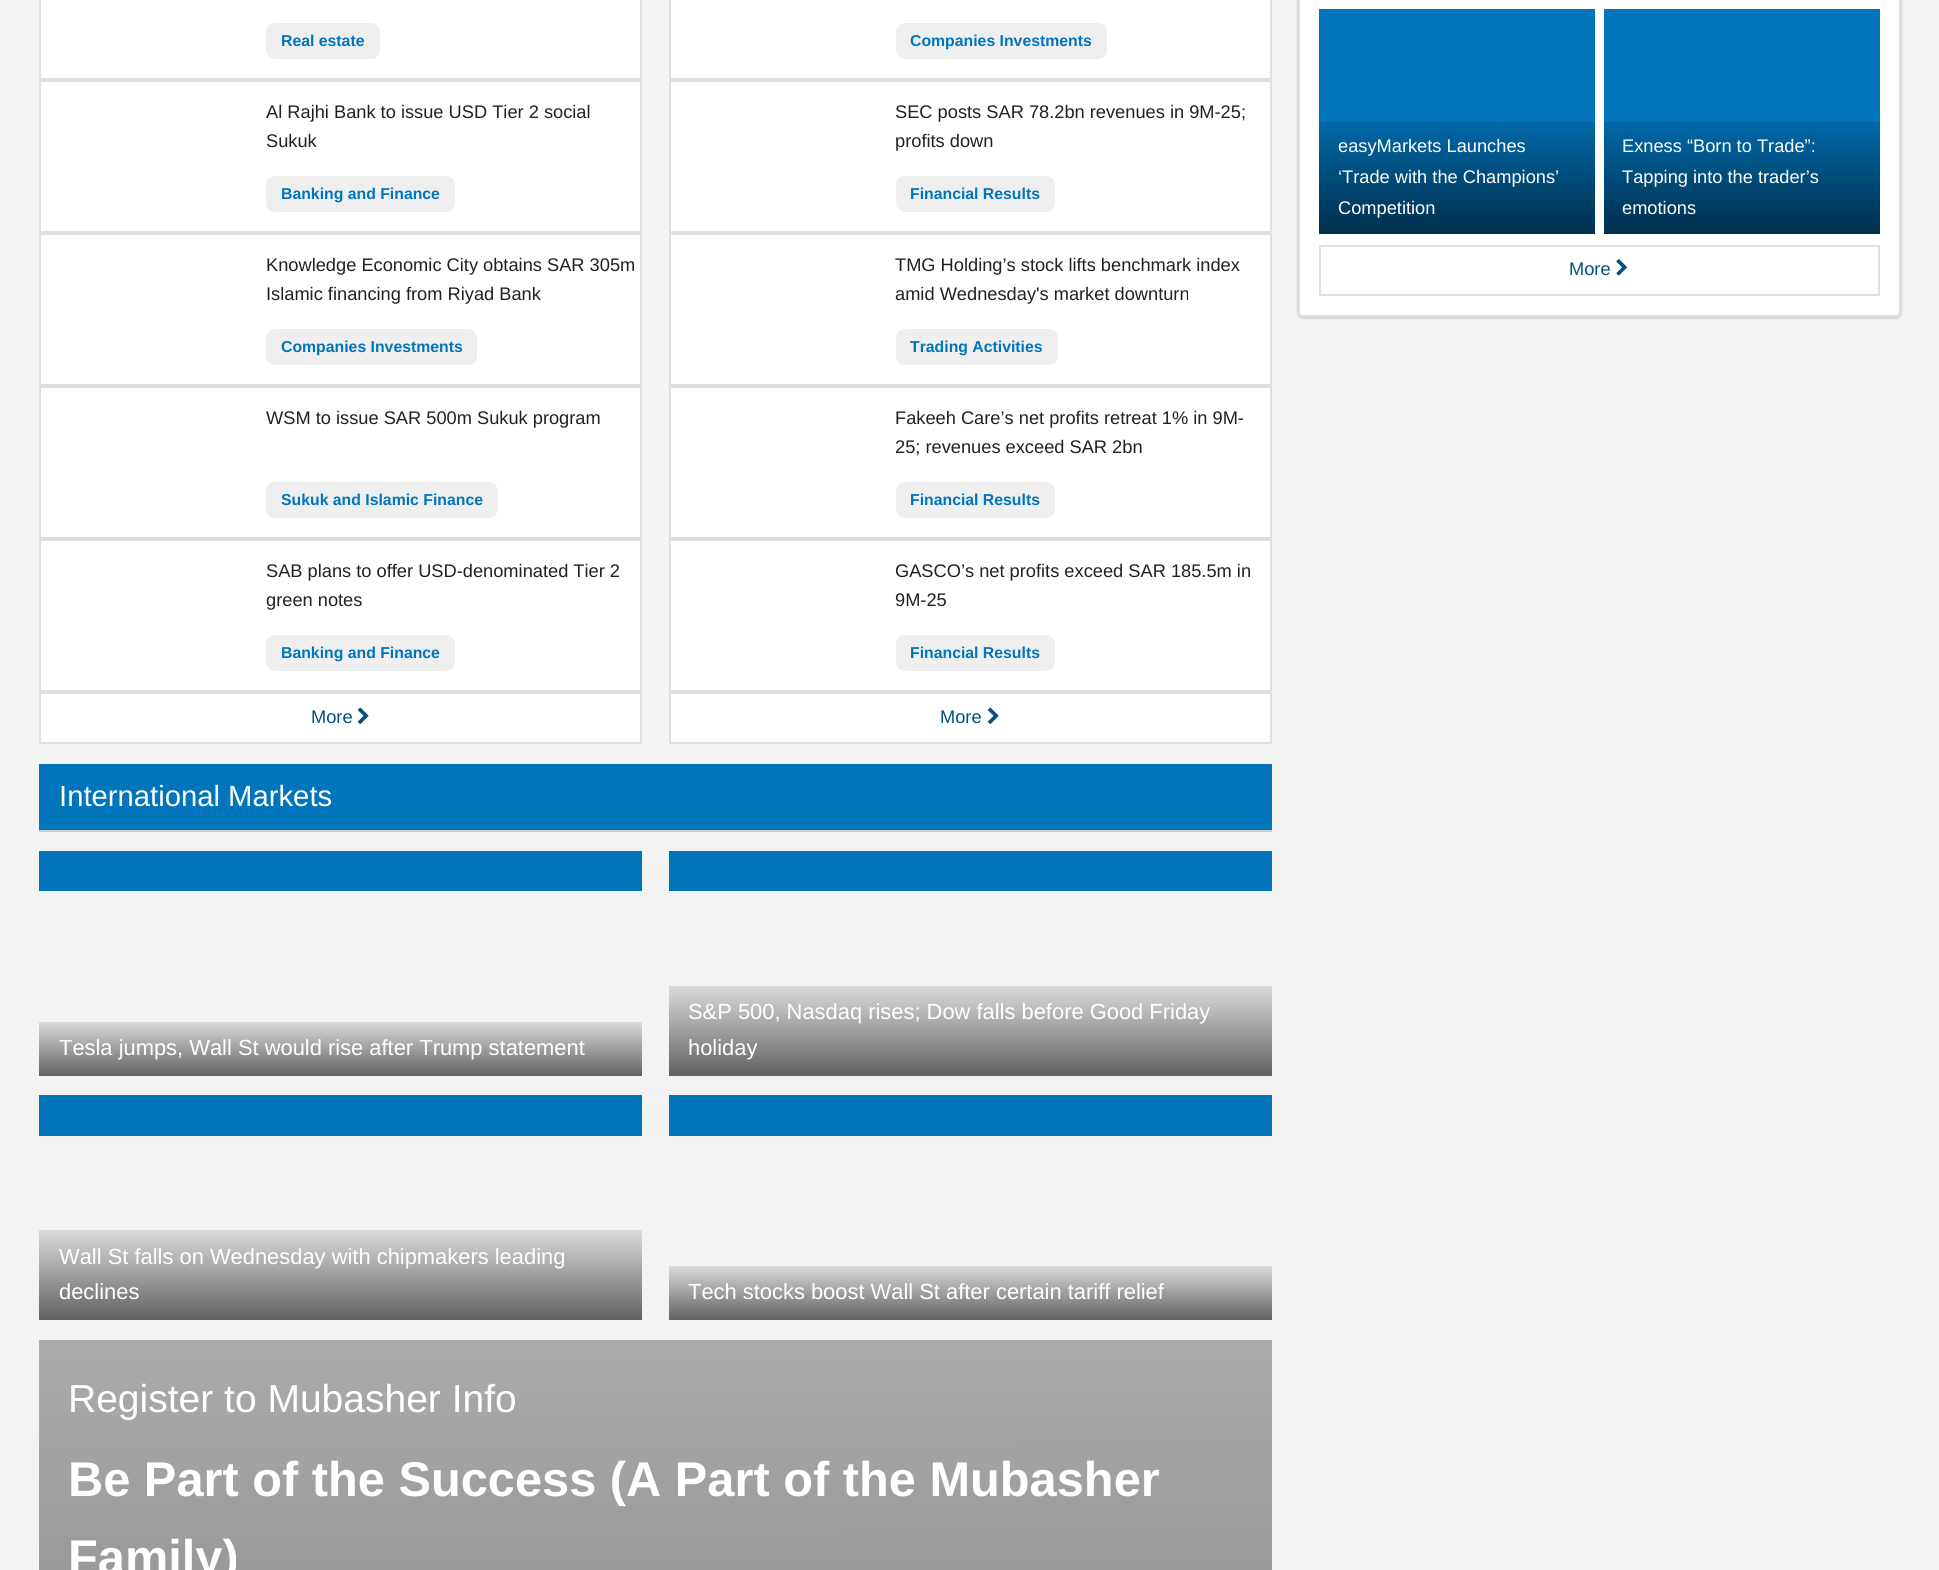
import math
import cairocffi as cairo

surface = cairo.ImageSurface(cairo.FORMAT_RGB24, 1939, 1570)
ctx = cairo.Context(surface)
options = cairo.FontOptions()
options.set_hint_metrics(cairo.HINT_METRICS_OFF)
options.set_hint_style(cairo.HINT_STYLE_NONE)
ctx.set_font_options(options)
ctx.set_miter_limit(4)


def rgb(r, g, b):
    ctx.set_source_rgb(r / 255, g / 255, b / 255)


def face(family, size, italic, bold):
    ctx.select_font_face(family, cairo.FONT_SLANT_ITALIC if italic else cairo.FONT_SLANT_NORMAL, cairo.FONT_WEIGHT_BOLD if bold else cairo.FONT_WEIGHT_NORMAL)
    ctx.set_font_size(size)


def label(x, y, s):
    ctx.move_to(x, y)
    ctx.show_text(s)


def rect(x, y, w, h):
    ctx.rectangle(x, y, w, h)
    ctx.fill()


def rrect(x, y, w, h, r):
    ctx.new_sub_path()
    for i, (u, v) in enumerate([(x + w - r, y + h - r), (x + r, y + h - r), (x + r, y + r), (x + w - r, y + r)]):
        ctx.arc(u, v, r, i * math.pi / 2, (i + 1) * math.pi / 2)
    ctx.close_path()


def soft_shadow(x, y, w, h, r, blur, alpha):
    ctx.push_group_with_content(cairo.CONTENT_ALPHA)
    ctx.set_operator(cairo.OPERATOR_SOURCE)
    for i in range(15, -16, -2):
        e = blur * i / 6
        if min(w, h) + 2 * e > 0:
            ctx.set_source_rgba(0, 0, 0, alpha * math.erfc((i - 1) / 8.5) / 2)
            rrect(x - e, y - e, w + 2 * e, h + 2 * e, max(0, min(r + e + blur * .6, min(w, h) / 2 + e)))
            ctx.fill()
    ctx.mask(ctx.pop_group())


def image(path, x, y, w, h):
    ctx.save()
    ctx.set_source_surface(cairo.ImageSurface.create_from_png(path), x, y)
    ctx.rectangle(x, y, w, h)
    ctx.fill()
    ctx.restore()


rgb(243, 243, 243)
ctx.paint()
rgb(255, 255, 255)
ctx.rectangle(40, -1, 601, 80)
ctx.fill_preserve()
rgb(223, 223, 223)
ctx.stroke()
rgb(239, 239, 239)
rrect(266, 23, 114, 36, 9)
ctx.fill()
face('Liberation Sans', 15.8, 0, 1)
rgb(0, 117, 188)
label(281, 46, 'Real estate')
rgb(255, 255, 255)
ctx.rectangle(40, 81, 601, 151)
ctx.fill_preserve()
rgb(223, 223, 223)
ctx.stroke()
face('Liberation Sans', 18.25, 0, 0)
rgb(33, 33, 33)
label(266, 118, 'Al Rajhi Bank to issue USD Tier 2 social')
label(266, 147, 'Sukuk')
rgb(239, 239, 239)
rrect(266, 176, 189, 36, 9)
ctx.fill()
face('Liberation Sans', 15.8, 0, 1)
rgb(0, 117, 188)
label(281, 199, 'Banking and Finance')
rgb(255, 255, 255)
ctx.rectangle(40, 234, 601, 151)
ctx.fill_preserve()
rgb(223, 223, 223)
ctx.stroke()
face('Liberation Sans', 18.25, 0, 0)
rgb(33, 33, 33)
label(266, 271, 'Knowledge Economic City obtains SAR 305m')
label(266, 300, 'Islamic financing from Riyad Bank')
rgb(239, 239, 239)
rrect(266, 329, 211, 36, 9)
ctx.fill()
face('Liberation Sans', 15.8, 0, 1)
rgb(0, 117, 188)
label(281, 352, 'Companies Investments')
rgb(255, 255, 255)
ctx.rectangle(40, 387, 601, 151)
ctx.fill_preserve()
rgb(223, 223, 223)
ctx.stroke()
face('Liberation Sans', 18.25, 0, 0)
rgb(33, 33, 33)
label(266, 424, 'WSM to issue SAR 500m Sukuk program')
rgb(239, 239, 239)
rrect(266, 482, 232, 36, 9)
ctx.fill()
face('Liberation Sans', 15.8, 0, 1)
rgb(0, 117, 188)
label(281, 505, 'Sukuk and Islamic Finance')
rgb(255, 255, 255)
ctx.rectangle(40, 540, 601, 151)
ctx.fill_preserve()
rgb(223, 223, 223)
ctx.stroke()
face('Liberation Sans', 18.25, 0, 0)
rgb(33, 33, 33)
label(266, 577, 'SAB plans to offer USD-denominated Tier 2')
label(266, 606, 'green notes')
rgb(239, 239, 239)
rrect(266, 635, 189, 36, 9)
ctx.fill()
face('Liberation Sans', 15.8, 0, 1)
rgb(0, 117, 188)
label(281, 658, 'Banking and Finance')
rgb(255, 255, 255)
ctx.rectangle(40, 693, 601, 50)
ctx.fill_preserve()
rgb(223, 223, 223)
ctx.stroke()
face('Liberation Sans', 18.25, 0, 0)
rgb(1, 80, 128)
label(311, 723, 'More')
image('image0.png', 358, 707, 11, 17)
rgb(255, 255, 255)
ctx.rectangle(670, -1, 601, 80)
ctx.fill_preserve()
rgb(223, 223, 223)
ctx.stroke()
rgb(239, 239, 239)
rrect(896, 23, 211, 36, 9)
ctx.fill()
face('Liberation Sans', 15.8, 0, 1)
rgb(0, 117, 188)
label(910, 46, 'Companies Investments')
rgb(255, 255, 255)
ctx.rectangle(670, 81, 601, 151)
ctx.fill_preserve()
rgb(223, 223, 223)
ctx.stroke()
face('Liberation Sans', 18.25, 0, 0)
rgb(33, 33, 33)
label(895, 118, 'SEC posts SAR 78.2bn revenues in 9M-25;')
label(895, 147, 'profits down')
rgb(239, 239, 239)
rrect(896, 176, 159, 36, 9)
ctx.fill()
face('Liberation Sans', 15.8, 0, 1)
rgb(0, 117, 188)
label(910, 199, 'Financial Results')
rgb(255, 255, 255)
ctx.rectangle(670, 234, 601, 151)
ctx.fill_preserve()
rgb(223, 223, 223)
ctx.stroke()
face('Liberation Sans', 18.25, 0, 0)
rgb(33, 33, 33)
label(895, 271, 'TMG Holding’s stock lifts benchmark index')
label(895, 300, 'amid Wednesday\'s market downturn')
rgb(239, 239, 239)
rrect(896, 329, 162, 36, 9)
ctx.fill()
face('Liberation Sans', 15.8, 0, 1)
rgb(0, 117, 188)
label(910, 352, 'Trading Activities')
rgb(255, 255, 255)
ctx.rectangle(670, 387, 601, 151)
ctx.fill_preserve()
rgb(223, 223, 223)
ctx.stroke()
face('Liberation Sans', 18.25, 0, 0)
rgb(33, 33, 33)
label(895, 424, 'Fakeeh Care’s net profits retreat 1% in 9M-')
label(895, 453, '25; revenues exceed SAR 2bn')
rgb(239, 239, 239)
rrect(896, 482, 159, 36, 9)
ctx.fill()
face('Liberation Sans', 15.8, 0, 1)
rgb(0, 117, 188)
label(910, 505, 'Financial Results')
rgb(255, 255, 255)
ctx.rectangle(670, 540, 601, 151)
ctx.fill_preserve()
rgb(223, 223, 223)
ctx.stroke()
face('Liberation Sans', 18.25, 0, 0)
rgb(33, 33, 33)
label(895, 577, 'GASCO’s net profits exceed SAR 185.5m in')
label(895, 606, '9M-25')
rgb(239, 239, 239)
rrect(896, 635, 159, 36, 9)
ctx.fill()
face('Liberation Sans', 15.8, 0, 1)
rgb(0, 117, 188)
label(910, 658, 'Financial Results')
rgb(255, 255, 255)
ctx.rectangle(670, 693, 601, 50)
ctx.fill_preserve()
rgb(223, 223, 223)
ctx.stroke()
face('Liberation Sans', 18.25, 0, 0)
rgb(1, 80, 128)
label(940, 723, 'More')
image('image0.png', 988, 707, 11, 17)
rgb(0, 117, 188)
rect(39, 764, 1233, 66)
rgb(204, 204, 204)
rect(39, 830, 1233, 2)
face('Liberation Sans', 29.25, 0, 0)
rgb(255, 255, 255)
label(59, 806, 'International Markets')
rgb(0, 117, 188)
rect(39, 851, 603, 40)
gradient = cairo.LinearGradient(341, 1022, 341, 1076)
gradient.add_color_stop_rgba(0, 0.859, 0.859, 0.859, 1)
gradient.add_color_stop_rgba(1, 0.38, 0.38, 0.38, 1)
ctx.set_source(gradient)
rect(39, 1022, 603, 54)
face('Liberation Sans', 21.9, 0, 0)
rgb(255, 255, 255)
label(59, 1055, 'Tesla jumps, Wall St would rise after Trump statement')
rgb(0, 117, 188)
rect(669, 851, 603, 40)
gradient = cairo.LinearGradient(971, 986, 971, 1076)
gradient.add_color_stop_rgba(0, 0.859, 0.859, 0.859, 1)
gradient.add_color_stop_rgba(1, 0.38, 0.38, 0.38, 1)
ctx.set_source(gradient)
rect(669, 986, 603, 90)
rgb(255, 255, 255)
label(688, 1019, 'S&P 500, Nasdaq rises; Dow falls before Good Friday')
label(688, 1055, 'holiday')
rgb(0, 117, 188)
rect(39, 1095, 603, 41)
gradient = cairo.LinearGradient(341, 1230, 341, 1320)
gradient.add_color_stop_rgba(0, 0.859, 0.859, 0.859, 1)
gradient.add_color_stop_rgba(1, 0.38, 0.38, 0.38, 1)
ctx.set_source(gradient)
rect(39, 1230, 603, 90)
rgb(255, 255, 255)
label(59, 1264, 'Wall St falls on Wednesday with chipmakers leading')
label(59, 1299, 'declines')
rgb(0, 117, 188)
rect(669, 1095, 603, 41)
gradient = cairo.LinearGradient(971, 1266, 971, 1320)
gradient.add_color_stop_rgba(0, 0.859, 0.859, 0.859, 1)
gradient.add_color_stop_rgba(1, 0.38, 0.38, 0.38, 1)
ctx.set_source(gradient)
rect(669, 1266, 603, 54)
rgb(255, 255, 255)
label(688, 1299, 'Tech stocks boost Wall St after certain tariff relief')
gradient = cairo.LinearGradient(655, 1340, 656, 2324)
gradient.add_color_stop_rgba(0, 0.671, 0.671, 0.671, 1)
gradient.add_color_stop_rgba(1, 0.38, 0.38, 0.38, 1)
ctx.set_source(gradient)
rect(39, 1340, 1233, 230)
face('Liberation Sans', 39, 0, 0)
rgb(255, 255, 255)
label(68, 1412, 'Register to Mubasher Info')
face('Liberation Sans', 48.75, 0, 1)
label(68, 1496, 'Be Part of the Success (A Part of the Mubasher')
label(68, 1574, 'Family)')
rgb(43, 59, 93)
soft_shadow(1298, -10, 603, 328, 5, 1.5, 0.29)
rgb(255, 255, 255)
rrect(1299, -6, 601, 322, 4)
ctx.fill_preserve()
rgb(223, 223, 223)
ctx.stroke()
rgb(0, 117, 188)
rect(1319, 9, 276, 113)
gradient = cairo.LinearGradient(1457, 121, 1457, 234)
gradient.add_color_stop_rgba(0, 0, 0.412, 0.663, 1)
gradient.add_color_stop_rgba(1, 0, 0.184, 0.294, 1)
ctx.set_source(gradient)
rect(1319, 122, 276, 112)
face('Liberation Sans', 18.25, 0, 0)
rgb(255, 255, 255)
label(1338, 152, 'easyMarkets Launches')
label(1338, 183, '‘Trade with the Champions’')
label(1338, 214, 'Competition')
rgb(0, 117, 188)
rect(1604, 9, 276, 113)
gradient = cairo.LinearGradient(1742, 121, 1742, 234)
gradient.add_color_stop_rgba(0, 0, 0.412, 0.663, 1)
gradient.add_color_stop_rgba(1, 0, 0.184, 0.294, 1)
ctx.set_source(gradient)
rect(1604, 122, 276, 112)
rgb(255, 255, 255)
label(1622, 152, 'Exness “Born to Trade”:')
label(1622, 183, 'Tapping into the trader’s')
label(1622, 214, 'emotions')
ctx.rectangle(1320, 246, 559, 49)
rgb(223, 223, 223)
ctx.stroke()
rgb(1, 80, 128)
label(1569, 275, 'More')
image('image1.png', 1616, 259, 11, 17)
surface.write_to_png('render.png')
